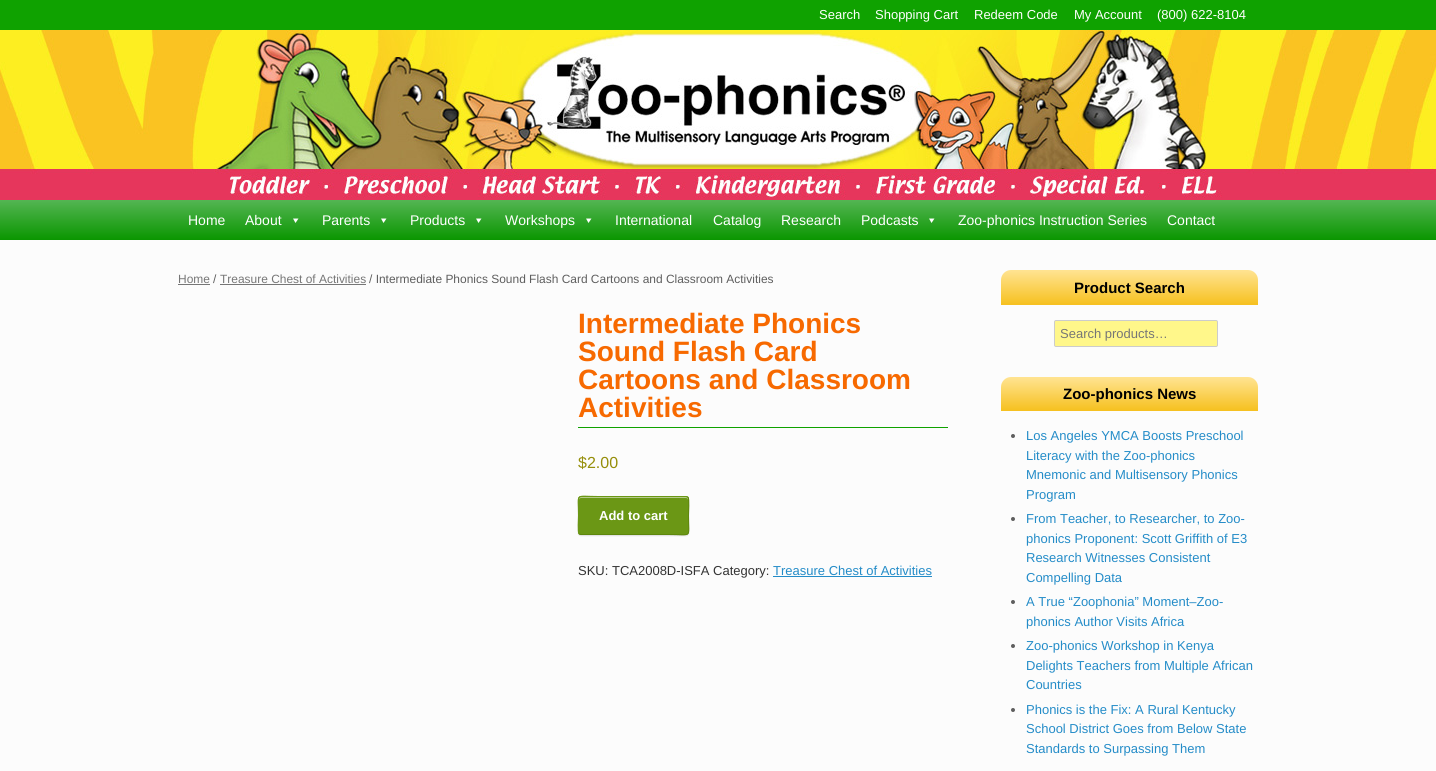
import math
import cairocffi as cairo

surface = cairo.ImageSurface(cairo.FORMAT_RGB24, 1436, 771)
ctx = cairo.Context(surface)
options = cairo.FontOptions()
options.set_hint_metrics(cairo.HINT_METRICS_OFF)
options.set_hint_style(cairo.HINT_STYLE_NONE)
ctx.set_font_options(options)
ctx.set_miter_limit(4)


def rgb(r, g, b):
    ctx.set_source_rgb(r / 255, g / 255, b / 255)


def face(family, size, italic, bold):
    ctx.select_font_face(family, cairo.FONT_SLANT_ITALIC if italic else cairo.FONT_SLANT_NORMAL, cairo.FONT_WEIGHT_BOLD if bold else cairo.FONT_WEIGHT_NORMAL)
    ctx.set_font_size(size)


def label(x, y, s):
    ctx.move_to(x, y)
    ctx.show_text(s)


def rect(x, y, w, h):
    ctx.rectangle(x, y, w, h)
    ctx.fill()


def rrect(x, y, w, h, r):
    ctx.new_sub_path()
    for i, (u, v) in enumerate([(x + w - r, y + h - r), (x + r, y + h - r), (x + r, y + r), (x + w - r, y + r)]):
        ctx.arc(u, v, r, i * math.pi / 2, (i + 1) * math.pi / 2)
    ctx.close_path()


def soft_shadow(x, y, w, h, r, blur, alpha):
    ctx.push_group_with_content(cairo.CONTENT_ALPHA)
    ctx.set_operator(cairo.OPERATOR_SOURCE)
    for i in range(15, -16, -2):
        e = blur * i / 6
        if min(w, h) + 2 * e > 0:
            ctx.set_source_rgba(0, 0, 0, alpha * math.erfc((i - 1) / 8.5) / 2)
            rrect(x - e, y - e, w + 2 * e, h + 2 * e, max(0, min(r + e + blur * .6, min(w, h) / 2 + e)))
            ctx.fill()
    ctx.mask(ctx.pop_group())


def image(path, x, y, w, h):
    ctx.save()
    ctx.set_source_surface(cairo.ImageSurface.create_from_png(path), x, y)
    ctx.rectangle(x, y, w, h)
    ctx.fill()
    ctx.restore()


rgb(15, 162, 0)
ctx.paint()
face('Liberation Sans', 13, 0, 0)
rgb(255, 255, 255)
label(819, 19, 'Search')
label(875, 19, 'Shopping Cart')
label(974, 19, 'Redeem Code')
label(1074, 19, 'My Account')
label(1157, 19, '(800) 622-8104')
image('image0.png', 0, 30, 1436, 170)
gradient = cairo.LinearGradient(718, 200, 718, 240)
gradient.add_color_stop_rgba(0, 0.329, 0.71, 0.325, 1)
gradient.add_color_stop_rgba(1, 0.039, 0.588, 0, 1)
ctx.set_source(gradient)
rect(0, 200, 1436, 40)
face('Liberation Sans', 14, 0, 0)
rgb(255, 255, 255)
label(188, 225, 'Home')
label(245, 225, 'About')
ctx.new_path()
ctx.move_to(298.5, 218.5)
ctx.line_to(295.5, 223)
ctx.line_to(293, 218.5)
ctx.close_path()
ctx.fill()
label(322, 225, 'Parents')
ctx.new_path()
ctx.move_to(386.5, 218.5)
ctx.line_to(383.5, 223)
ctx.line_to(381, 218.5)
ctx.close_path()
ctx.fill()
label(410, 225, 'Products')
ctx.new_path()
ctx.move_to(481.5, 218.5)
ctx.line_to(478.5, 223)
ctx.line_to(476, 218.5)
ctx.close_path()
ctx.fill()
label(505, 225, 'Workshops')
ctx.new_path()
ctx.move_to(591.5, 218.5)
ctx.line_to(588.5, 223)
ctx.line_to(586, 218.5)
ctx.close_path()
ctx.fill()
label(615, 225, 'International')
label(713, 225, 'Catalog')
label(781, 225, 'Research')
label(861, 225, 'Podcasts')
ctx.new_path()
ctx.move_to(934.5, 218.5)
ctx.line_to(931.5, 223)
ctx.line_to(929, 218.5)
ctx.close_path()
ctx.fill()
label(958, 225, 'Zoo-phonics Instruction Series')
label(1167, 225, 'Contact')
rgb(252, 252, 252)
rect(0, 240, 1436, 531)
face('Liberation Sans', 11.95, 0, 0)
rgb(118, 118, 118)
label(178, 283, 'Home')
rect(178, 284, 32, 1)
rgb(94, 94, 94)
label(213, 283, '/')
rgb(118, 118, 118)
label(220, 283, 'Treasure Chest of Activities')
rect(220, 284, 146, 1)
rgb(94, 94, 94)
label(369, 283, '/ Intermediate Phonics Sound Flash Card Cartoons and Classroom Activities')
rgb(15, 162, 0)
rect(578, 427, 370, 1)
face('Liberation Sans', 28, 0, 1)
rgb(247, 105, 0)
label(578, 333, 'Intermediate Phonics')
label(578, 361, 'Sound Flash Card')
label(578, 389, 'Cartoons and Classroom')
label(578, 417, 'Activities')
face('Liberation Sans', 16, 0, 0)
rgb(149, 142, 9)
label(578, 468, '$2.00')
rgb(0, 0, 0)
soft_shadow(578, 497, 111, 39, 3, 0.5, 0.12)
rgb(107, 151, 21)
rrect(578, 496, 111, 39, 3)
ctx.fill()
rgb(181, 203, 138)
ctx.new_path()
ctx.move_to(581, 498)
ctx.line_to(686, 498)
ctx.curve_to(687, 498, 688, 499, 688, 500)
ctx.curve_to(688, 499, 688, 497, 686, 497)
ctx.line_to(581, 497)
ctx.curve_to(579, 497, 579, 499, 579, 500)
ctx.curve_to(579, 499, 580, 498, 581, 498)
ctx.close_path()
ctx.fill()
ctx.new_path()
ctx.move_to(688, 497)
ctx.curve_to(689.5, 499, 688.5, 512.5, 688.5, 515.5)
ctx.curve_to(688.5, 539, 693, 534.5, 668.5, 534.5)
ctx.line_to(581, 534.5)
ctx.line_to(579, 534)
rgb(94, 135, 13)
ctx.set_line_width(1)
ctx.stroke()
ctx.new_path()
ctx.move_to(579, 534)
ctx.curve_to(577.5, 532, 578.5, 518.5, 578.5, 515.5)
ctx.curve_to(578.5, 492, 574, 496.5, 598.5, 496.5)
ctx.line_to(686, 496.5)
ctx.line_to(688, 497)
rgb(107, 151, 21)
ctx.stroke()
face('Liberation Sans', 13, 0, 1)
rgb(255, 255, 255)
label(599, 520, 'Add to cart')
face('Liberation Sans', 13, 0, 0)
rgb(51, 51, 51)
label(578, 575, 'SKU: TCA2008D-ISFA Category:')
rgb(36, 140, 200)
label(773, 575, 'Treasure Chest of Activities')
rect(773, 576, 159, 1)
gradient = cairo.LinearGradient(1130, 270, 1130, 305)
gradient.add_color_stop_rgba(0.03, 1, 0.89, 0.561, 1)
gradient.add_color_stop_rgba(0.97, 0.965, 0.757, 0.133, 1)
ctx.set_source(gradient)
ctx.new_path()
ctx.move_to(1011, 270)
ctx.line_to(1248, 270)
ctx.curve_to(1253.5, 270, 1258, 274.5, 1258, 280)
ctx.line_to(1258, 305)
ctx.line_to(1001, 305)
ctx.line_to(1001, 280)
ctx.curve_to(1001, 274.5, 1005.5, 270, 1011, 270)
ctx.close_path()
ctx.fill()
face('Liberation Sans', 15, 0, 1)
rgb(0, 0, 0)
label(1074, 293, 'Product Search')
rgb(255, 247, 138)
rrect(1054.5, 320.5, 163, 26, 1.5)
ctx.fill_preserve()
rgb(204, 204, 204)
ctx.stroke()
face('Liberation Sans', 13, 0, 0)
rgb(118, 118, 118)
label(1060, 338, 'Search products…')
gradient = cairo.LinearGradient(1130, 377, 1130, 411)
gradient.add_color_stop_rgba(0.03, 1, 0.89, 0.561, 1)
gradient.add_color_stop_rgba(0.97, 0.965, 0.757, 0.133, 1)
ctx.set_source(gradient)
ctx.new_path()
ctx.move_to(1011, 377)
ctx.line_to(1248, 377)
ctx.curve_to(1253.5, 377, 1258, 381.5, 1258, 387)
ctx.line_to(1258, 411)
ctx.line_to(1001, 411)
ctx.line_to(1001, 387)
ctx.curve_to(1001, 381.5, 1005.5, 377, 1011, 377)
ctx.close_path()
ctx.fill()
face('Liberation Sans', 15, 0, 1)
rgb(0, 0, 0)
label(1063, 399, 'Zoo-phonics News')
rgb(94, 94, 94)
ctx.new_path()
ctx.arc(1013, 436, 2, 0, 2 * math.pi)
ctx.fill()
face('Liberation Sans', 13, 0, 0)
rgb(36, 140, 200)
label(1026, 440, 'Los Angeles YMCA Boosts Preschool')
label(1026, 460, 'Literacy with the Zoo-phonics')
label(1026, 479, 'Mnemonic and Multisensory Phonics')
label(1026, 499, 'Program')
rgb(94, 94, 94)
ctx.new_path()
ctx.arc(1013, 519, 2, 0, 2 * math.pi)
ctx.fill()
rgb(36, 140, 200)
label(1026, 523, 'From Teacher, to Researcher, to Zoo-')
label(1026, 543, 'phonics Proponent: Scott Griffith of E3')
label(1026, 562, 'Research Witnesses Consistent')
label(1026, 582, 'Compelling Data')
rgb(94, 94, 94)
ctx.new_path()
ctx.arc(1013, 602, 2, 0, 2 * math.pi)
ctx.fill()
rgb(36, 140, 200)
label(1026, 606, 'A True “Zoophonia” Moment–Zoo-')
label(1026, 626, 'phonics Author Visits Africa')
rgb(94, 94, 94)
ctx.new_path()
ctx.arc(1013, 646, 2, 0, 2 * math.pi)
ctx.fill()
rgb(36, 140, 200)
label(1026, 650, 'Zoo-phonics Workshop in Kenya')
label(1026, 670, 'Delights Teachers from Multiple African')
label(1026, 689, 'Countries')
rgb(94, 94, 94)
ctx.new_path()
ctx.arc(1013, 710, 2, 0, 2 * math.pi)
ctx.fill()
rgb(36, 140, 200)
label(1026, 714, 'Phonics is the Fix: A Rural Kentucky')
label(1026, 733, 'School District Goes from Below State')
label(1026, 753, 'Standards to Surpassing Them')
surface.write_to_png('render.png')
